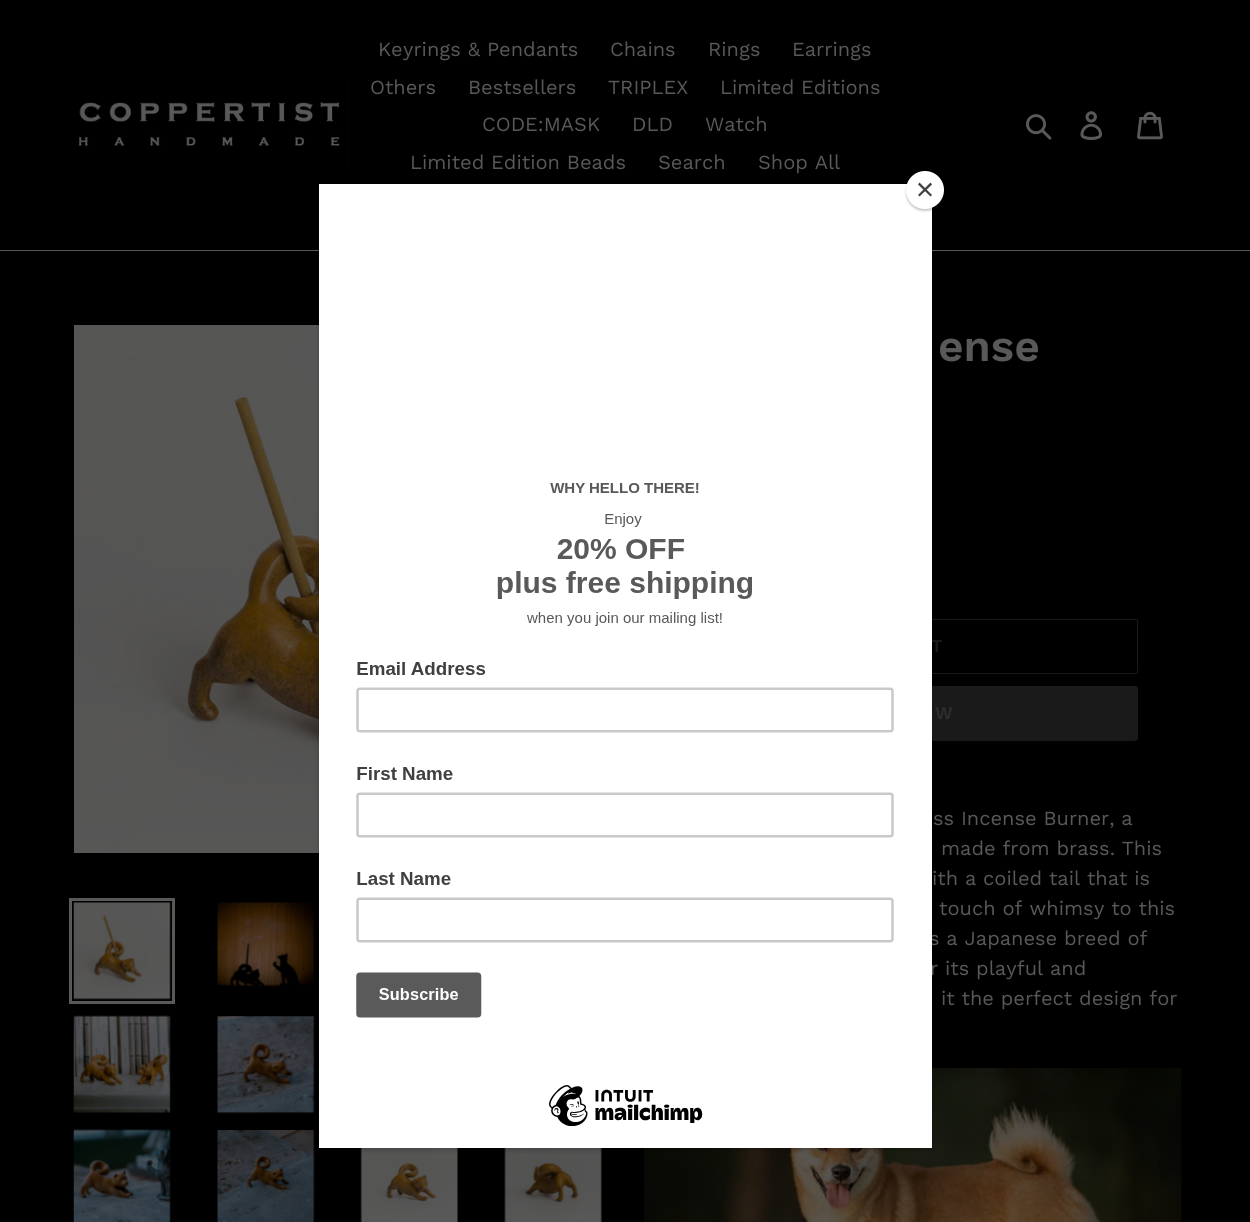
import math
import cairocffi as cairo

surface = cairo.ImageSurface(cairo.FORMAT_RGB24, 1250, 1222)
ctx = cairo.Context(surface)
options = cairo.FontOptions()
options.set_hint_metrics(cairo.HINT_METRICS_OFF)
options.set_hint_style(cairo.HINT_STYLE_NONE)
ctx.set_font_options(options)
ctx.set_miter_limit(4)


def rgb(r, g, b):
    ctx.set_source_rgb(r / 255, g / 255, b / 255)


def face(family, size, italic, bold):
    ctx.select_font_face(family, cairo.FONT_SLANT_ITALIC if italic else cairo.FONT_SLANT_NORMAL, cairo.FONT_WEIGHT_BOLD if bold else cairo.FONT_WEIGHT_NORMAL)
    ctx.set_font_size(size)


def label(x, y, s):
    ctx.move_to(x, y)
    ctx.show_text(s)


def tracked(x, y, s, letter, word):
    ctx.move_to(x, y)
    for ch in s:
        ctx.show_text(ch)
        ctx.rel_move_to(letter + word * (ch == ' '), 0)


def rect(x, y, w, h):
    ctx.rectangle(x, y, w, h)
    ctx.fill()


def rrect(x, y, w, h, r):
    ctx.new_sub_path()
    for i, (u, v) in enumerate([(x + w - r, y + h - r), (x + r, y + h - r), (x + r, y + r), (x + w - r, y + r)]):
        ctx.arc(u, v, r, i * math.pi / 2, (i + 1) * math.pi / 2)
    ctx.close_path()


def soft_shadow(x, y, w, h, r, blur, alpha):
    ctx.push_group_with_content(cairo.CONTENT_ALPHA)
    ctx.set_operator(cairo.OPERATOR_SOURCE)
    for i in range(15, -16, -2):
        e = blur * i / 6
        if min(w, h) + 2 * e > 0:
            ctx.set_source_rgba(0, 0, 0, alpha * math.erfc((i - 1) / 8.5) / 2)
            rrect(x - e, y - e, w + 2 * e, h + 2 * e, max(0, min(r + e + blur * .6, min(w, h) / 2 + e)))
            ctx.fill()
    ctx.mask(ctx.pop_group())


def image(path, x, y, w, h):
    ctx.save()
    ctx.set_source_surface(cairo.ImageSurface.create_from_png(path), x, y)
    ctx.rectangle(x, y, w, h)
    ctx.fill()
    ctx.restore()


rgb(0, 0, 0)
ctx.paint()
rgb(89, 89, 89)
rect(0, 250, 1250, 1)
image('image0.png', 77, 82, 271, 86)
face('Work Sans', 20, 0, 0)
label(378, 56, 'Keyrings & Pendants')
label(610, 56, 'Chains')
label(708, 56, 'Rings')
label(792, 56, 'Earrings')
label(370, 94, 'Others')
label(468, 94, 'Bestsellers')
label(608, 94, 'TRIPLEX')
label(720, 94, 'Limited Editions')
label(482, 131, 'CODE:MASK')
label(632, 131, 'DLD')
label(705, 131, 'Watch')
label(410, 169, 'Limited Edition Beads')
label(658, 169, 'Search')
label(758, 169, 'Shop All')
image('image1.png', 1026, 114, 26, 26)
image('image2.png', 1080, 111, 23, 29)
image('image3.png', 1137, 111, 26, 29)
image('image5.png', 74, 325, 245, 528)
image('image7.png', 217, 902, 98, 85)
image('image9.png', 217, 1016, 98, 98)
image('image11.png', 217, 1130, 98, 92)
image('image12.png', 360, 1148, 98, 74)
image('image13.png', 504, 1148, 98, 74)
rrect(650.5, 619.5, 487, 54, 2)
rgb(26, 26, 26)
ctx.set_line_width(1)
ctx.stroke()
rrect(650, 686, 488, 55, 2.5)
ctx.fill()
image('image14.png', 644, 1068, 538, 154)
rgb(0, 0, 0)
soft_shadow(319, 186, 612, 964, 0, 2.5, 0.2)
face('Work Sans SemiBold', 18, 0, 0)
rgb(26, 26, 26)
tracked(931, 652, 'T', 1, 0)
face('Work Sans', 20, 0, 0)
rgb(89, 89, 89)
label(929, 945, 's a Japanese breed of')
label(930, 975, 'r its playful and')
image('image4.png', 319, 184, 613, 964)
rgb(0, 0, 0)
soft_shadow(906, 174, 38, 37, 18.5, 1, 0.2)
rgb(255, 255, 255)
ctx.arc(925, 190, 19, 0, 2 * math.pi)
ctx.fill()
rgb(65, 65, 65)
ctx.new_path()
ctx.move_to(930.5, 182.5)
ctx.line_to(932, 184.5)
ctx.line_to(919.5, 196.5)
ctx.line_to(918, 195)
ctx.close_path()
ctx.fill()
ctx.new_path()
ctx.move_to(918, 184.5)
ctx.line_to(919.5, 182.5)
ctx.line_to(932, 195)
ctx.line_to(930.5, 196.5)
ctx.close_path()
ctx.fill()
ctx.rectangle(70.5, 899.5, 103, 103)
rgb(89, 89, 89)
ctx.set_line_width(3)
ctx.stroke()
image('image6.png', 73, 902, 98, 98)
image('image8.png', 73, 1015, 98, 98)
image('image10.png', 73, 1129, 98, 93)
face('Work Sans SemiBold', 44, 0, 0)
label(938, 361, 'ense')
face('Work Sans SemiBold', 18, 0, 0)
rgb(45, 45, 45)
tracked(935, 719, 'W', 1, 0)
face('Work Sans', 20, 0, 0)
rgb(89, 89, 89)
label(933, 825, 'ss Incense Burner, a')
label(941, 855, 'made from brass. This')
label(932, 885, 'ith a coiled tail that is')
label(939, 915, 'touch of whimsy to this')
label(941, 1005, 'it the perfect design for')
surface.write_to_png('render.png')
